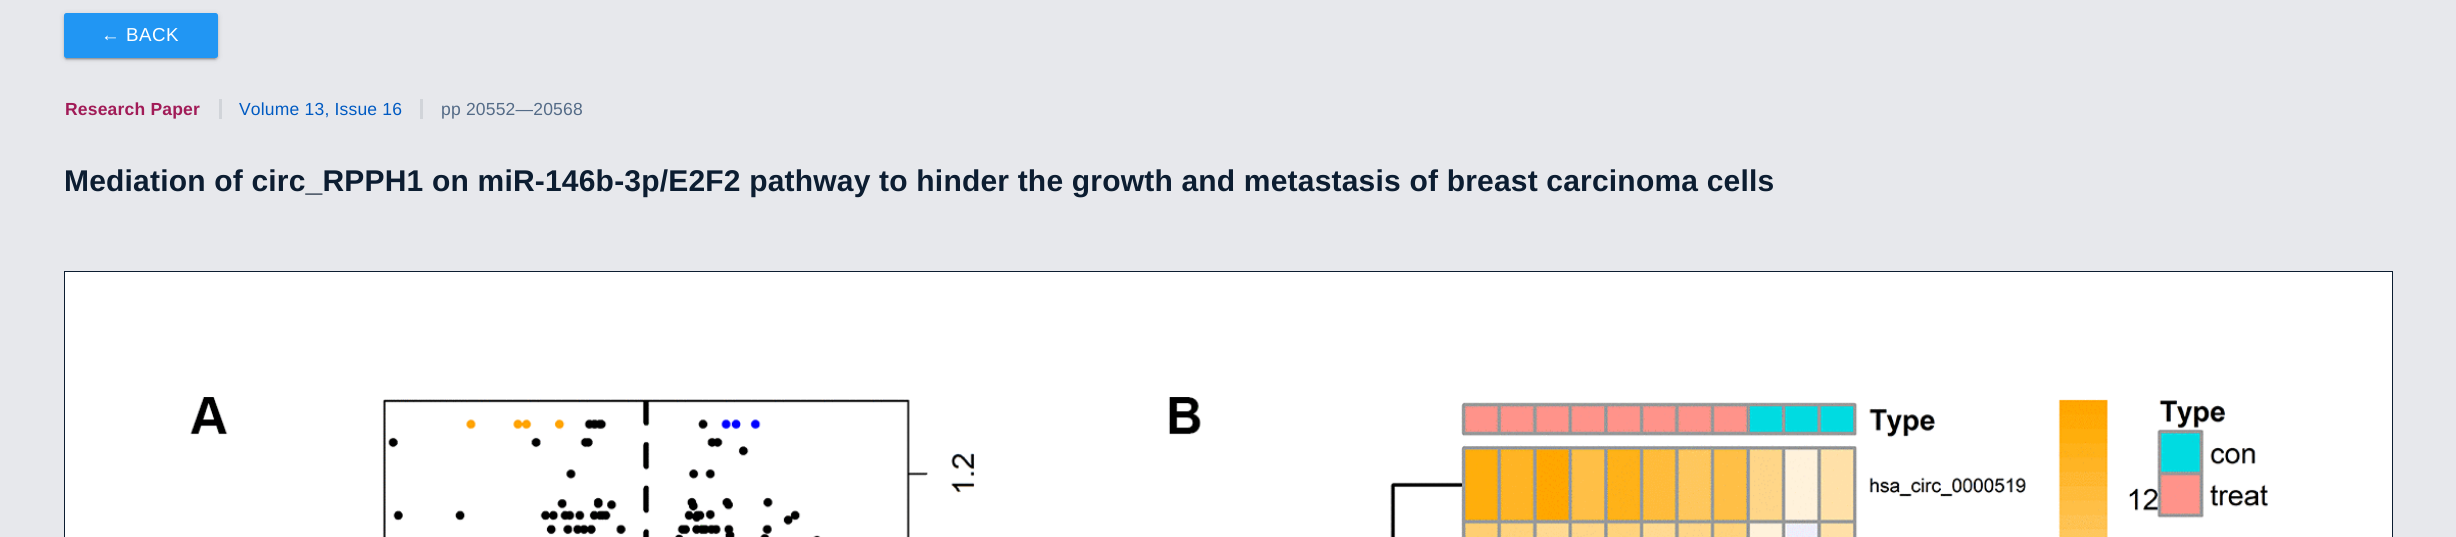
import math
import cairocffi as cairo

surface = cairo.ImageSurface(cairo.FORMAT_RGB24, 2456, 537)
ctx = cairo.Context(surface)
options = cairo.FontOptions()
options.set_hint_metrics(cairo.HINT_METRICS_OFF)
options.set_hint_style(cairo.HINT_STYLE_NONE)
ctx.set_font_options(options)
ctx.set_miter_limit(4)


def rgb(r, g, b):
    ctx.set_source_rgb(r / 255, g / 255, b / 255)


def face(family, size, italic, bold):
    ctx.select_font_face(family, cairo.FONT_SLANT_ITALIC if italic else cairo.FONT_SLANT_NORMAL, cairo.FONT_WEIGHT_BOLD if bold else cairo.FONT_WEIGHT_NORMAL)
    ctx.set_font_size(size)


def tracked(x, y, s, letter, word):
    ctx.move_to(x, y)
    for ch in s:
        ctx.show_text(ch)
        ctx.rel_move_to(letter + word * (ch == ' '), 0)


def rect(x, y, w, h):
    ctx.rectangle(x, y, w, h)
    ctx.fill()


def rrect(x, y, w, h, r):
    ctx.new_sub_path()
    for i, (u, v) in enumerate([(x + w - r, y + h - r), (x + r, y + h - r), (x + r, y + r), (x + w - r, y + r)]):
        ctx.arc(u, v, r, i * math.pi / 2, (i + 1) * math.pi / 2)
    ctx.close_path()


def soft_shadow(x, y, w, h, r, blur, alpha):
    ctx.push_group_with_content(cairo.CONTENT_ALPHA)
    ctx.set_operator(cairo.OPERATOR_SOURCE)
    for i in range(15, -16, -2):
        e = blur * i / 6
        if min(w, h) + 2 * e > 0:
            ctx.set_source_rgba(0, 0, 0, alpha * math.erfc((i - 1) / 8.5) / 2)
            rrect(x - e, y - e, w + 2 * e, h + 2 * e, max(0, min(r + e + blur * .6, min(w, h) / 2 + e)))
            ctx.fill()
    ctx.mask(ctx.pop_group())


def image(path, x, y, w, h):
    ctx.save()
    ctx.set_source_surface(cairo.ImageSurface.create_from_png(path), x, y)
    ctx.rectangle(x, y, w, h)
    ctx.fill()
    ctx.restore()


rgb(231, 232, 236)
ctx.paint()
rgb(0, 0, 0)
soft_shadow(66, 19, 149, 40, 0, 0.5, 0.2)
soft_shadow(64, 14, 154, 45, 2.5, 3, 0.12)
soft_shadow(64, 15, 154, 45, 2.5, 1, 0.14)
rgb(33, 150, 243)
rrect(64, 13, 154, 45, 2.5)
ctx.fill()
face('Liberation Sans', 18.75, 0, 0)
rgb(255, 255, 255)
tracked(101, 41, '← BACK', 0.5, 0)
face('Liberation Sans', 17.5, 0, 1)
rgb(161, 27, 87)
tracked(65, 115, 'Research Paper', 0.19, 0)
rgb(209, 212, 217)
rect(219, 99, 3, 20)
face('Liberation Sans', 17.5, 0, 0)
rgb(0, 90, 194)
tracked(239, 115, 'Volume 13, Issue 16', 0.19, 0)
rgb(209, 212, 217)
rect(420, 99, 3, 20)
rgb(84, 107, 135)
tracked(441, 115, 'pp 20552—20568', 0.19, 0)
face('Liberation Sans', 30, 0, 1)
rgb(12, 29, 49)
tracked(64, 191, 'Mediation of circ_RPPH1 on miR-146b-3p/E2F2 pathway to hinder the growth and metastasis of breast carcinoma cells', 0.19, 0)
rgb(255, 255, 255)
ctx.rectangle(64.5, 271.5, 2328, 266)
ctx.fill_preserve()
rgb(12, 29, 49)
ctx.set_line_width(1)
ctx.stroke()
image('image0.png', 190, 397, 2079, 140)
surface.write_to_png('render.png')
